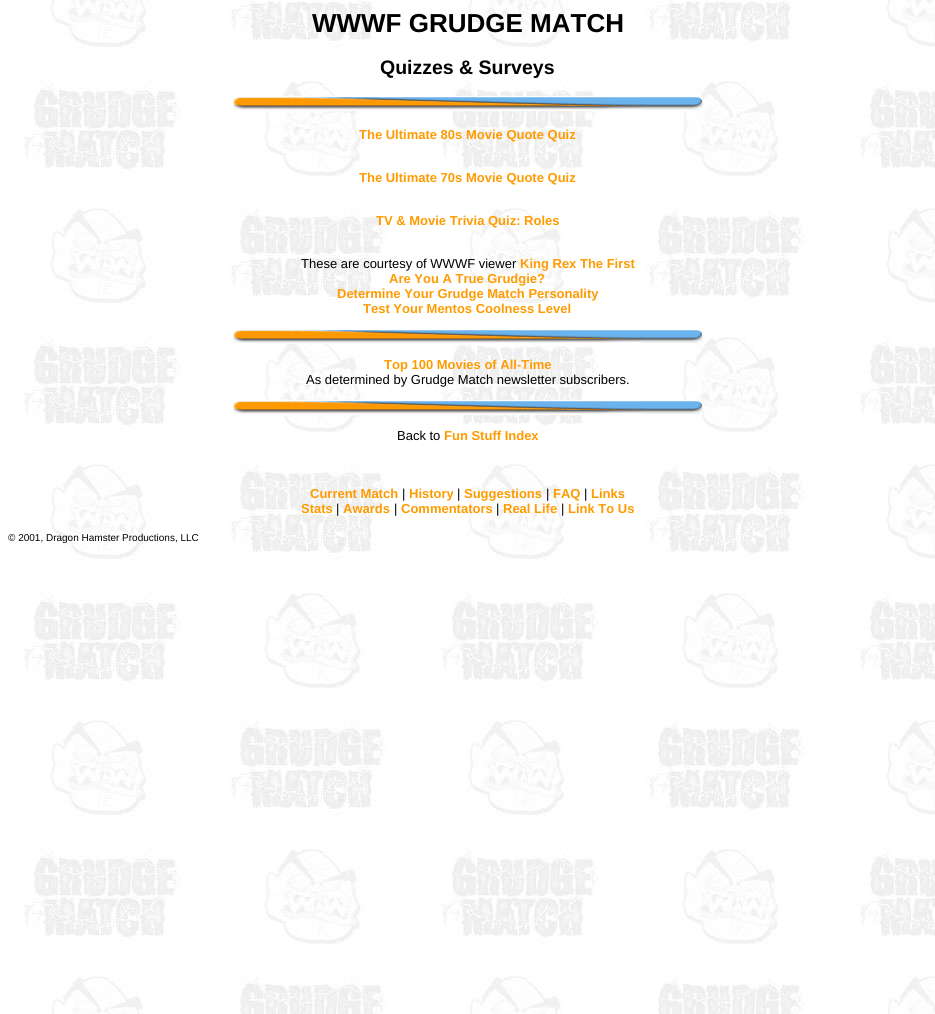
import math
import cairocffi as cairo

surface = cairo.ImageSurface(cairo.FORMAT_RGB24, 935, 1014)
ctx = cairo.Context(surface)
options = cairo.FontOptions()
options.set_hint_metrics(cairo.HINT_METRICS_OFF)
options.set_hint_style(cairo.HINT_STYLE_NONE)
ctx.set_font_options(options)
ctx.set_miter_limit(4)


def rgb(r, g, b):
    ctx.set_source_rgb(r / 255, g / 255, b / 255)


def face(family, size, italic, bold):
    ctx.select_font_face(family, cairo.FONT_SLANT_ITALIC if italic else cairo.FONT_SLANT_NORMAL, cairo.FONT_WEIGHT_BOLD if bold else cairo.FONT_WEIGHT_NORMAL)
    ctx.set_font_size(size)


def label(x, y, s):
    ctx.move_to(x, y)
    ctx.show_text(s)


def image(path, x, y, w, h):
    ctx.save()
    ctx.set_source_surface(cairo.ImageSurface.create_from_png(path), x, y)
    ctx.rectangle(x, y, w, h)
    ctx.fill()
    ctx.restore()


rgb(255, 255, 255)
ctx.paint()
image('image0.png', 23, 0, 912, 1014)
face('Liberation Sans', 26, 0, 1)
rgb(0, 0, 0)
label(312, 32, 'WWWF GRUDGE MATCH')
face('Liberation Sans', 19.5, 0, 1)
label(380, 74, 'Quizzes & Surveys')
image('image1.png', 233, 96, 470, 15)
face('Liberation Sans', 13, 0, 1)
rgb(255, 155, 0)
label(359, 139, 'The Ultimate 80s Movie Quote Quiz')
label(359, 182, 'The Ultimate 70s Movie Quote Quiz')
label(376, 225, 'TV & Movie Trivia Quiz: Roles')
face('Liberation Sans', 13, 0, 0)
rgb(0, 0, 0)
label(301, 268, 'These are courtesy of WWWF viewer')
face('Liberation Sans', 13, 0, 1)
rgb(255, 155, 0)
label(520, 268, 'King Rex The First')
label(389, 283, 'Are You A True Grudgie?')
label(337, 298, 'Determine Your Grudge Match Personality')
label(363, 313, 'Test Your Mentos Coolness Level')
image('image2.png', 233, 330, 470, 14)
label(384, 369, 'Top 100 Movies of All-Time')
face('Liberation Sans', 13, 0, 0)
rgb(0, 0, 0)
label(306, 384, 'As determined by Grudge Match newsletter subscribers.')
image('image1.png', 233, 400, 470, 15)
label(397, 440, 'Back to')
face('Liberation Sans', 13, 0, 1)
rgb(255, 155, 0)
label(444, 440, 'Fun Stuff Index')
label(310, 498, 'Current Match')
face('Liberation Sans', 13, 0, 0)
rgb(0, 0, 0)
label(402, 498, '|')
face('Liberation Sans', 13, 0, 1)
rgb(255, 155, 0)
label(409, 498, 'History')
face('Liberation Sans', 13, 0, 0)
rgb(0, 0, 0)
label(457, 498, '|')
face('Liberation Sans', 13, 0, 1)
rgb(255, 155, 0)
label(464, 498, 'Suggestions')
face('Liberation Sans', 13, 0, 0)
rgb(0, 0, 0)
label(546, 498, '|')
face('Liberation Sans', 13, 0, 1)
rgb(255, 155, 0)
label(553, 498, 'FAQ')
face('Liberation Sans', 13, 0, 0)
rgb(0, 0, 0)
label(584, 498, '|')
face('Liberation Sans', 13, 0, 1)
rgb(255, 155, 0)
label(591, 498, 'Links')
label(301, 513, 'Stats')
face('Liberation Sans', 13, 0, 0)
rgb(0, 0, 0)
label(336, 513, '|')
face('Liberation Sans', 13, 0, 1)
rgb(255, 155, 0)
label(343, 513, 'Awards')
face('Liberation Sans', 13, 0, 0)
rgb(0, 0, 0)
label(394, 513, '|')
face('Liberation Sans', 13, 0, 1)
rgb(255, 155, 0)
label(401, 513, 'Commentators')
face('Liberation Sans', 13, 0, 0)
rgb(0, 0, 0)
label(496, 513, '|')
face('Liberation Sans', 13, 0, 1)
rgb(255, 155, 0)
label(503, 513, 'Real Life')
face('Liberation Sans', 13, 0, 0)
rgb(0, 0, 0)
label(561, 513, '|')
face('Liberation Sans', 13, 0, 1)
rgb(255, 155, 0)
label(568, 513, 'Link To Us')
face('Liberation Sans', 10, 0, 0)
rgb(0, 0, 0)
label(8, 541, '© 2001, Dragon Hamster Productions, LLC')
surface.write_to_png('render.png')
